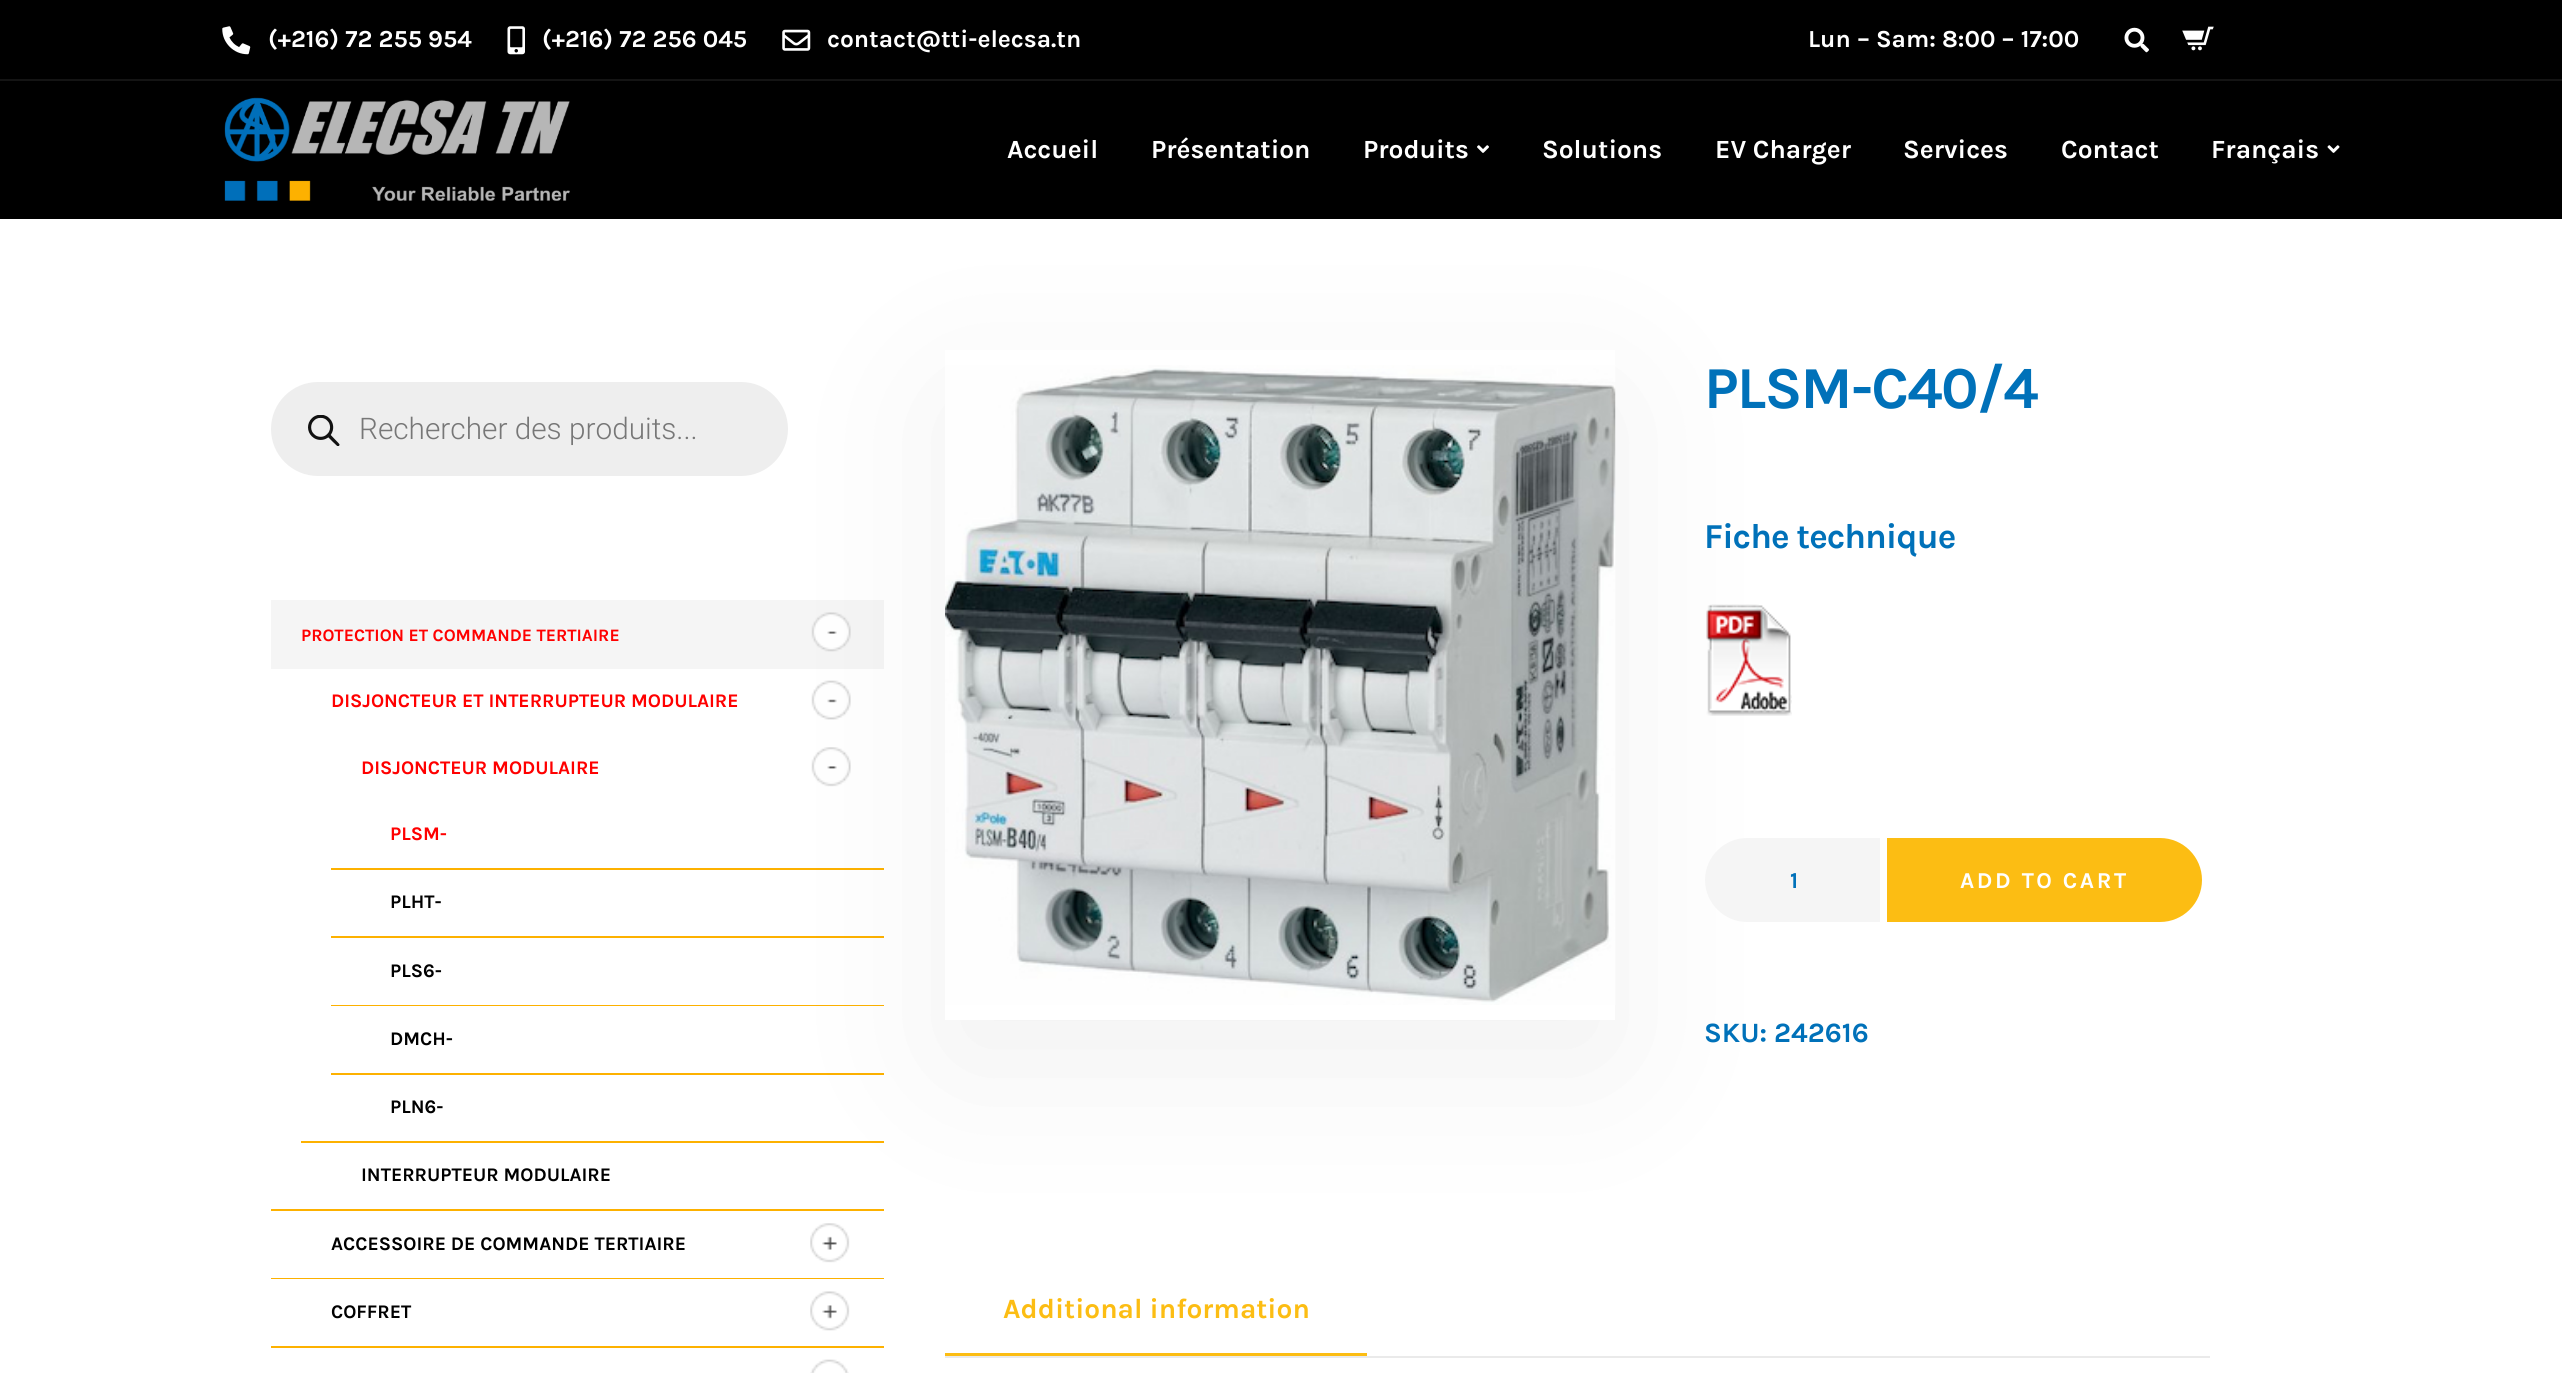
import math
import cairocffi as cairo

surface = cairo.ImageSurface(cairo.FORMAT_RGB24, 2562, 1373)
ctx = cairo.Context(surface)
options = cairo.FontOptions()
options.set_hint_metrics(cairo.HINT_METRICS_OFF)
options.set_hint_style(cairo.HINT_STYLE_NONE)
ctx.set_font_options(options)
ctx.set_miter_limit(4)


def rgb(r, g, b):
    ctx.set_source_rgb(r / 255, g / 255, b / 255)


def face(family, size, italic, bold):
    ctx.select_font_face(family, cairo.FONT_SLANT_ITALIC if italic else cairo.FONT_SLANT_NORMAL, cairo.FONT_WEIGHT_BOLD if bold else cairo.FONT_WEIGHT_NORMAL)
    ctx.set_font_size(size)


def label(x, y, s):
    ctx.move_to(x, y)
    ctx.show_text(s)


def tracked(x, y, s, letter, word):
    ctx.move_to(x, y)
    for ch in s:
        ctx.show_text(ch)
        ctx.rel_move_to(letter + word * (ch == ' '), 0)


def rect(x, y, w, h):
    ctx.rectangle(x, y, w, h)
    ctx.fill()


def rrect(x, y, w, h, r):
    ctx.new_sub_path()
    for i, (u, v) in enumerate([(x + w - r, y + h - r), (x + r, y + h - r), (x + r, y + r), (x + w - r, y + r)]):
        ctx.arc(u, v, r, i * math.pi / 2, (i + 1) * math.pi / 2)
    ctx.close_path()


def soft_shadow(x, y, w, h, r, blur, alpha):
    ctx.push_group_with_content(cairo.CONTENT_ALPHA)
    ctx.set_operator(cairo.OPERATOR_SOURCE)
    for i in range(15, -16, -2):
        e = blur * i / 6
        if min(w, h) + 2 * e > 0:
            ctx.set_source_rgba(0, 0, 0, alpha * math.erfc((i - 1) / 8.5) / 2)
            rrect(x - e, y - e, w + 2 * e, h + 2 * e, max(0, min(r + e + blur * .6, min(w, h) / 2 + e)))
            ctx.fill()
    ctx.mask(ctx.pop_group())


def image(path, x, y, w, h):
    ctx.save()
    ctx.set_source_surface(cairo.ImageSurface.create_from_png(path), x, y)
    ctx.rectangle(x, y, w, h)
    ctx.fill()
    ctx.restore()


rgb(255, 255, 255)
ctx.paint()
rgb(238, 238, 238)
rrect(271, 382, 517, 94, 47)
ctx.fill()
rgb(245, 245, 245)
rect(271, 600, 613, 69)
image('image9.png', 811, 612, 40, 40)
rgb(253, 177, 0)
rect(271, 1209, 613, 2)
image('image10.png', 811, 680, 40, 40)
rect(301, 1141, 583, 2)
image('image11.png', 811, 747, 40, 40)
rect(331, 868, 553, 2)
rect(331, 936, 553, 2)
rect(331, 1005, 553, 1)
rect(331, 1073, 553, 2)
rect(271, 1278, 613, 1)
image('image12.png', 810, 1223, 40, 40)
image('image13.png', 810, 1291, 40, 40)
ctx.save()
ctx.set_fill_rule(cairo.FILL_RULE_EVEN_ODD)
ctx.new_path()
ctx.move_to(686, 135)
ctx.line_to(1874, 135)
ctx.line_to(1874, 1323)
ctx.line_to(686, 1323)
ctx.close_path()
ctx.move_to(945, 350)
ctx.line_to(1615, 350)
ctx.line_to(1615, 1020)
ctx.line_to(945, 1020)
ctx.close_path()
ctx.clip()
rgb(0, 0, 0)
soft_shadow(945, 394, 670, 670, 0, 86, 0.06)
ctx.restore()
rgb(0, 0, 0)
rect(0, 0, 2562, 219)
rgb(20, 20, 20)
rect(0, 79, 2562, 2)
image('image0.png', 222, 26, 29, 29)
face('Karla', 24.5, 0, 1)
rgb(255, 255, 255)
label(268, 47, '(+216) 72 255 954')
image('image1.png', 507, 26, 18, 29)
label(542, 47, '(+216) 72 256 045')
image('image2.png', 782, 29, 29, 22)
label(827, 47, 'contact@tti-elecsa.tn')
label(1808, 47, 'Lun – Sam: 8:00 – 17:00')
image('image3.png', 2124, 27, 25, 26)
image('image4.png', 2182, 26, 32, 25)
image('image5.png', 224, 97, 346, 104)
face('Karla', 26.25, 0, 1)
label(1007, 158, 'Accueil')
label(1151, 158, 'Présentation')
label(1363, 158, 'Produits')
image('image6.png', 1477, 145, 12, 8)
label(1542, 158, 'Solutions')
label(1715, 158, 'EV Charger')
label(1903, 158, 'Services')
label(2061, 158, 'Contact')
label(2211, 158, 'Français')
image('image7.png', 2327, 145, 13, 8)
image('image8.png', 308, 415, 32, 31)
face('Roboto Light', 29.75, 0, 0)
rgb(119, 119, 119)
label(359, 439, 'Rechercher des produits...')
face('Karla', 17.5, 0, 1)
rgb(255, 0, 0)
label(301, 641, 'PROTECTION ET COMMANDE TERTIAIRE')
face('Karla', 19.25, 0, 1)
label(331, 707, 'DISJONCTEUR ET INTERRUPTEUR MODULAIRE')
label(361, 774, 'DISJONCTEUR MODULAIRE')
label(390, 840, 'PLSM-')
rgb(0, 0, 0)
label(390, 908, 'PLHT-')
label(390, 977, 'PLS6-')
label(390, 1045, 'DMCH-')
label(390, 1113, 'PLN6-')
label(361, 1181, 'INTERRUPTEUR MODULAIRE')
label(331, 1250, 'ACCESSOIRE DE COMMANDE TERTIAIRE')
rgb(253, 177, 0)
rect(271, 1346, 613, 2)
rgb(0, 0, 0)
label(331, 1318, 'COFFRET')
image('image14.png', 810, 1359, 39, 14)
image('image15.png', 945, 365, 671, 640)
face('Karla', 59.5, 0, 1)
rgb(0, 113, 185)
tracked(1704, 408, 'PLSM-C40/4', -1.75, 0)
face('Karla', 35, 0, 1)
tracked(1704, 548, 'Fiche technique', -1, 0)
image('image16.png', 1706, 604, 86, 112)
rgb(245, 245, 245)
ctx.new_path()
ctx.move_to(1747, 838)
ctx.line_to(1880, 838)
ctx.line_to(1880, 922)
ctx.line_to(1747, 922)
ctx.curve_to(1724, 922, 1705, 903, 1705, 880)
ctx.curve_to(1705, 857, 1724, 838, 1747, 838)
ctx.close_path()
ctx.fill()
face('Karla', 22.75, 0, 1)
rgb(0, 113, 185)
label(1790, 888, '1')
rgb(252, 189, 19)
ctx.new_path()
ctx.move_to(1889, 840)
ctx.line_to(2160, 840)
ctx.curve_to(2182, 840, 2200, 858, 2200, 880)
ctx.curve_to(2200, 902, 2182, 920, 2160, 920)
ctx.line_to(1889, 920)
ctx.close_path()
ctx.fill_preserve()
ctx.set_line_width(4)
ctx.stroke()
rgb(255, 255, 255)
tracked(1960, 888, 'ADD TO CART', 2.6, 0)
face('Karla', 28, 0, 1)
rgb(0, 113, 185)
label(1704, 1042, 'SKU: 242616')
rgb(234, 234, 234)
rect(945, 1356, 1265, 2)
rgb(252, 189, 19)
rect(945, 1353, 422, 3)
label(1003, 1318, 'Additional information')
surface.write_to_png('render.png')
